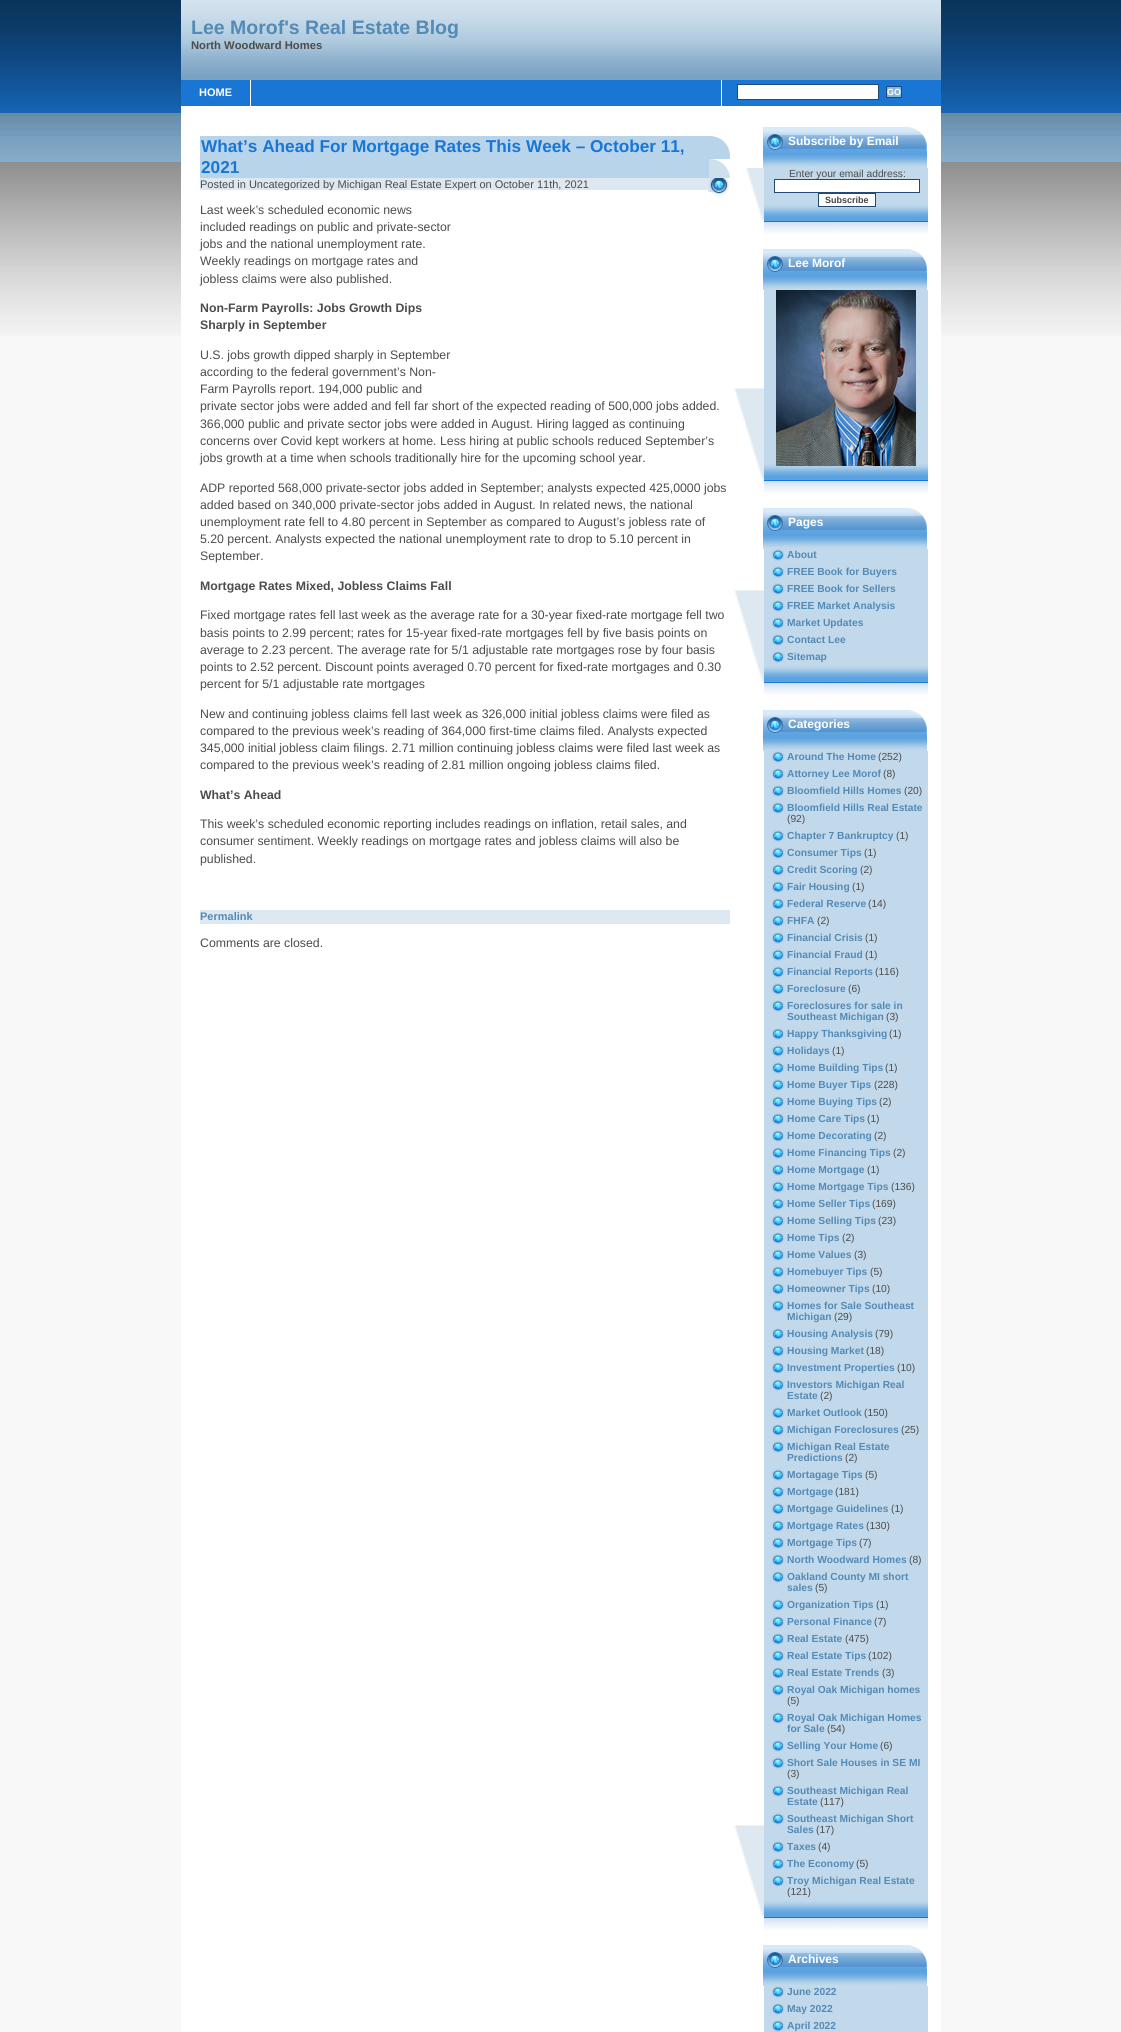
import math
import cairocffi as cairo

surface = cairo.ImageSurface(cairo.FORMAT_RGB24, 1121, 2032)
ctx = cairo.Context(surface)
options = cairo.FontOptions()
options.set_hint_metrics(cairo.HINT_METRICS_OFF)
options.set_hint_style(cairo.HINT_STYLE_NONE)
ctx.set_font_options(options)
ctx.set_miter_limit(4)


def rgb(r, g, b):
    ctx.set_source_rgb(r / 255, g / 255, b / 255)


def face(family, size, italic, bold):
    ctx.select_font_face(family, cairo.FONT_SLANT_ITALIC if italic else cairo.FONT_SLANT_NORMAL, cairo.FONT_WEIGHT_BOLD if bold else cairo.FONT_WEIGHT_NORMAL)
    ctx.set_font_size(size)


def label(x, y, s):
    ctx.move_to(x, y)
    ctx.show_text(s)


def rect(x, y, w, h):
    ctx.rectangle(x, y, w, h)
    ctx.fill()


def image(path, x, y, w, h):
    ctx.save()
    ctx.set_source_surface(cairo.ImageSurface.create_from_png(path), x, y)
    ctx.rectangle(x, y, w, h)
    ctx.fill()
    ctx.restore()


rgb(248, 248, 248)
ctx.paint()
image('image0.png', 0, 0, 1121, 336)
rgb(255, 255, 255)
rect(181, 106, 760, 1926)
rgb(121, 161, 193)
rect(181, 75, 760, 5)
image('image1.png', 181, 0, 760, 75)
face('Liberation Sans', 19.5, 0, 1)
rgb(83, 138, 182)
label(191, 34, 'Lee Morof\'s Real Estate Blog')
face('Liberation Sans', 11.25, 0, 1)
rgb(76, 76, 76)
label(191, 49, 'North Woodward Homes')
rgb(25, 118, 212)
rect(181, 80, 760, 26)
rgb(255, 255, 255)
rect(250, 80, 1, 26)
face('Liberation Sans', 11, 0, 1)
label(199, 96, 'HOME')
rect(721, 80, 1, 26)
ctx.rectangle(737.5, 84.5, 141, 15)
ctx.fill_preserve()
rgb(34, 74, 114)
ctx.set_line_width(1)
ctx.stroke()
rgb(135, 181, 218)
ctx.rectangle(886.5, 86.5, 15, 11)
ctx.fill_preserve()
rgb(34, 74, 114)
ctx.stroke()
face('Liberation Sans', 9, 0, 1)
rgb(255, 255, 255)
label(887, 95, 'GO')
rgb(184, 212, 235)
rect(200, 136, 509, 42)
image('image2.png', 709, 136, 21, 42)
face('Liberation Sans', 17.2, 0, 1)
rgb(25, 118, 212)
label(201, 152, 'What’s Ahead For Mortgage Rates This Week – October 11,')
label(201, 173, '2021')
rgb(221, 232, 241)
rect(200, 178, 508, 12)
face('Liberation Sans', 11, 0, 0)
rgb(76, 76, 76)
label(200, 188, 'Posted in Uncategorized by Michigan Real Estate Expert on October 11th, 2021')
image('image3.png', 708, 178, 22, 18)
face('Liberation Sans', 12.3, 0, 0)
label(200, 214, 'Last week’s scheduled economic news')
label(200, 231, 'included readings on public and private-sector')
label(200, 248, 'jobs and the national unemployment rate.')
label(200, 265, 'Weekly readings on mortgage rates and')
label(200, 283, 'jobless claims were also published.')
face('Liberation Sans', 12.3, 0, 1)
label(200, 312, 'Non-Farm Payrolls: Jobs Growth Dips')
label(200, 329, 'Sharply in September')
face('Liberation Sans', 12.3, 0, 0)
label(200, 359, 'U.S. jobs growth dipped sharply in September')
label(200, 376, 'according to the federal government’s Non-')
label(200, 393, 'Farm Payrolls report. 194,000 public and')
label(200, 410, 'private sector jobs were added and fell far short of the expected reading of 500,000 jobs added.')
label(200, 428, '366,000 public and private sector jobs were added in August. Hiring lagged as continuing')
label(200, 445, 'concerns over Covid kept workers at home. Less hiring at public schools reduced September’s')
label(200, 462, 'jobs growth at a time when schools traditionally hire for the upcoming school year.')
label(200, 492, 'ADP reported 568,000 private-sector jobs added in September; analysts expected 425,0000 jobs')
label(200, 509, 'added based on 340,000 private-sector jobs added in August. In related news, the national')
label(200, 526, 'unemployment rate fell to 4.80 percent in September as compared to August’s jobless rate of')
label(200, 543, '5.20 percent. Analysts expected the national unemployment rate to drop to 5.10 percent in')
label(200, 560, 'September.')
face('Liberation Sans', 12.3, 0, 1)
label(200, 590, 'Mortgage Rates Mixed, Jobless Claims Fall')
face('Liberation Sans', 12.3, 0, 0)
label(200, 619, 'Fixed mortgage rates fell last week as the average rate for a 30-year fixed-rate mortgage fell two')
label(200, 637, 'basis points to 2.99 percent; rates for 15-year fixed-rate mortgages fell by five basis points on')
label(200, 654, 'average to 2.23 percent. The average rate for 5/1 adjustable rate mortgages rose by four basis')
label(200, 671, 'points to 2.52 percent. Discount points averaged 0.70 percent for fixed-rate mortgages and 0.30')
label(200, 688, 'percent for 5/1 adjustable rate mortgages')
label(200, 718, 'New and continuing jobless claims fell last week as 326,000 initial jobless claims were filed as')
label(200, 735, 'compared to the previous week’s reading of 364,000 first-time claims filed. Analysts expected')
label(200, 752, '345,000 initial jobless claim filings. 2.71 million continuing jobless claims were filed last week as')
label(200, 769, 'compared to the previous week’s reading of 2.81 million ongoing jobless claims filed.')
face('Liberation Sans', 12.3, 0, 1)
label(200, 799, 'What’s Ahead')
face('Liberation Sans', 12.3, 0, 0)
label(200, 828, 'This week’s scheduled economic reporting includes readings on inflation, retail sales, and')
label(200, 845, 'consumer sentiment. Weekly readings on mortgage rates and jobless claims will also be')
label(200, 863, 'published.')
rgb(221, 232, 241)
rect(200, 910, 530, 14)
face('Liberation Sans', 11, 0, 1)
rgb(83, 138, 182)
label(200, 920, 'Permalink')
face('Liberation Sans', 12.3, 0, 0)
rgb(76, 76, 76)
label(200, 947, 'Comments are closed.')
rgb(194, 217, 235)
rect(785, 167, 116, 1)
image('image4.png', 763, 126, 22, 42)
image('image5.png', 785, 126, 116, 41)
face('Liberation Sans', 12, 0, 1)
rgb(255, 255, 255)
label(788, 145, 'Subscribe by Email')
image('image6.png', 901, 126, 27, 42)
image('image7.png', 746, 168, 182, 69)
face('Liberation Sans', 10.25, 0, 0)
rgb(76, 76, 76)
label(789, 177, 'Enter your email address:')
rgb(255, 255, 255)
ctx.rectangle(774.5, 179.5, 145, 13)
ctx.fill_preserve()
rgb(34, 74, 114)
ctx.stroke()
rgb(255, 255, 255)
ctx.rectangle(818.5, 193.5, 57, 13)
ctx.fill_preserve()
rgb(34, 74, 114)
ctx.stroke()
face('Liberation Sans', 9, 0, 1)
rgb(68, 68, 68)
label(825, 203, 'Subscribe')
rgb(194, 217, 235)
rect(764, 289, 164, 99)
image('image4.png', 763, 248, 22, 42)
image('image5.png', 785, 248, 116, 41)
face('Liberation Sans', 12, 0, 1)
rgb(255, 255, 255)
label(788, 267, 'Lee Morof')
image('image6.png', 901, 248, 27, 42)
image('image8.png', 734, 388, 194, 108)
image('image9.png', 776, 290, 140, 176)
rgb(194, 217, 235)
rect(764, 548, 164, 42)
image('image4.png', 763, 507, 22, 42)
image('image5.png', 785, 507, 116, 41)
rgb(255, 255, 255)
label(788, 526, 'Pages')
image('image6.png', 901, 507, 27, 42)
image('image8.png', 734, 590, 194, 108)
image('image10.png', 771, 549, 14, 12)
face('Liberation Sans', 10.25, 0, 1)
rgb(83, 138, 182)
label(787, 558, 'About')
image('image10.png', 771, 566, 14, 12)
label(787, 575, 'FREE Book for Buyers')
image('image10.png', 771, 583, 14, 12)
label(787, 592, 'FREE Book for Sellers')
image('image10.png', 771, 600, 14, 12)
label(787, 609, 'FREE Market Analysis')
image('image10.png', 771, 617, 14, 12)
label(787, 626, 'Market Updates')
image('image10.png', 771, 634, 14, 12)
label(787, 643, 'Contact Lee')
image('image10.png', 771, 651, 14, 12)
label(787, 660, 'Sitemap')
rgb(194, 217, 235)
rect(764, 750, 164, 1075)
image('image4.png', 763, 709, 22, 42)
image('image5.png', 785, 709, 116, 41)
face('Liberation Sans', 12, 0, 1)
rgb(255, 255, 255)
label(788, 728, 'Categories')
image('image6.png', 901, 709, 27, 42)
image('image8.png', 734, 1825, 194, 108)
image('image10.png', 771, 751, 14, 12)
face('Liberation Sans', 10.25, 0, 1)
rgb(83, 138, 182)
label(787, 760, 'Around The Home')
face('Liberation Sans', 10.25, 0, 0)
rgb(76, 76, 76)
label(878, 760, '(252)')
image('image10.png', 771, 768, 14, 12)
face('Liberation Sans', 10.25, 0, 1)
rgb(83, 138, 182)
label(787, 777, 'Attorney Lee Morof')
face('Liberation Sans', 10.25, 0, 0)
rgb(76, 76, 76)
label(883, 777, '(8)')
image('image10.png', 771, 785, 14, 12)
face('Liberation Sans', 10.25, 0, 1)
rgb(83, 138, 182)
label(787, 794, 'Bloomfield Hills Homes')
face('Liberation Sans', 10.25, 0, 0)
rgb(76, 76, 76)
label(904, 794, '(20)')
image('image10.png', 771, 802, 14, 12)
face('Liberation Sans', 10.25, 0, 1)
rgb(83, 138, 182)
label(787, 811, 'Bloomfield Hills Real Estate')
face('Liberation Sans', 10.25, 0, 0)
rgb(76, 76, 76)
label(787, 822, '(92)')
image('image10.png', 771, 830, 14, 12)
face('Liberation Sans', 10.25, 0, 1)
rgb(83, 138, 182)
label(787, 839, 'Chapter 7 Bankruptcy')
face('Liberation Sans', 10.25, 0, 0)
rgb(76, 76, 76)
label(896, 839, '(1)')
image('image10.png', 771, 847, 14, 12)
face('Liberation Sans', 10.25, 0, 1)
rgb(83, 138, 182)
label(787, 856, 'Consumer Tips')
face('Liberation Sans', 10.25, 0, 0)
rgb(76, 76, 76)
label(864, 856, '(1)')
image('image10.png', 771, 864, 14, 12)
face('Liberation Sans', 10.25, 0, 1)
rgb(83, 138, 182)
label(787, 873, 'Credit Scoring')
face('Liberation Sans', 10.25, 0, 0)
rgb(76, 76, 76)
label(860, 873, '(2)')
image('image10.png', 771, 881, 14, 12)
face('Liberation Sans', 10.25, 0, 1)
rgb(83, 138, 182)
label(787, 890, 'Fair Housing')
face('Liberation Sans', 10.25, 0, 0)
rgb(76, 76, 76)
label(852, 890, '(1)')
image('image10.png', 771, 898, 14, 12)
face('Liberation Sans', 10.25, 0, 1)
rgb(83, 138, 182)
label(787, 907, 'Federal Reserve')
face('Liberation Sans', 10.25, 0, 0)
rgb(76, 76, 76)
label(868, 907, '(14)')
image('image10.png', 771, 915, 14, 12)
face('Liberation Sans', 10.25, 0, 1)
rgb(83, 138, 182)
label(787, 924, 'FHFA')
face('Liberation Sans', 10.25, 0, 0)
rgb(76, 76, 76)
label(817, 924, '(2)')
image('image10.png', 771, 932, 14, 12)
face('Liberation Sans', 10.25, 0, 1)
rgb(83, 138, 182)
label(787, 941, 'Financial Crisis')
face('Liberation Sans', 10.25, 0, 0)
rgb(76, 76, 76)
label(865, 941, '(1)')
image('image10.png', 771, 949, 14, 12)
face('Liberation Sans', 10.25, 0, 1)
rgb(83, 138, 182)
label(787, 958, 'Financial Fraud')
face('Liberation Sans', 10.25, 0, 0)
rgb(76, 76, 76)
label(865, 958, '(1)')
image('image10.png', 771, 966, 14, 12)
face('Liberation Sans', 10.25, 0, 1)
rgb(83, 138, 182)
label(787, 975, 'Financial Reports')
face('Liberation Sans', 10.25, 0, 0)
rgb(76, 76, 76)
label(875, 975, '(116)')
image('image10.png', 771, 983, 14, 12)
face('Liberation Sans', 10.25, 0, 1)
rgb(83, 138, 182)
label(787, 992, 'Foreclosure')
face('Liberation Sans', 10.25, 0, 0)
rgb(76, 76, 76)
label(848, 992, '(6)')
image('image10.png', 771, 1000, 14, 12)
face('Liberation Sans', 10.25, 0, 1)
rgb(83, 138, 182)
label(787, 1009, 'Foreclosures for sale in')
label(787, 1020, 'Southeast Michigan')
face('Liberation Sans', 10.25, 0, 0)
rgb(76, 76, 76)
label(886, 1020, '(3)')
image('image10.png', 771, 1028, 14, 12)
face('Liberation Sans', 10.25, 0, 1)
rgb(83, 138, 182)
label(787, 1037, 'Happy Thanksgiving')
face('Liberation Sans', 10.25, 0, 0)
rgb(76, 76, 76)
label(889, 1037, '(1)')
image('image10.png', 771, 1045, 14, 12)
face('Liberation Sans', 10.25, 0, 1)
rgb(83, 138, 182)
label(787, 1054, 'Holidays')
face('Liberation Sans', 10.25, 0, 0)
rgb(76, 76, 76)
label(832, 1054, '(1)')
image('image10.png', 771, 1062, 14, 12)
face('Liberation Sans', 10.25, 0, 1)
rgb(83, 138, 182)
label(787, 1071, 'Home Building Tips')
face('Liberation Sans', 10.25, 0, 0)
rgb(76, 76, 76)
label(885, 1071, '(1)')
image('image10.png', 771, 1079, 14, 12)
face('Liberation Sans', 10.25, 0, 1)
rgb(83, 138, 182)
label(787, 1088, 'Home Buyer Tips')
face('Liberation Sans', 10.25, 0, 0)
rgb(76, 76, 76)
label(874, 1088, '(228)')
image('image10.png', 771, 1096, 14, 12)
face('Liberation Sans', 10.25, 0, 1)
rgb(83, 138, 182)
label(787, 1105, 'Home Buying Tips')
face('Liberation Sans', 10.25, 0, 0)
rgb(76, 76, 76)
label(879, 1105, '(2)')
image('image10.png', 771, 1113, 14, 12)
face('Liberation Sans', 10.25, 0, 1)
rgb(83, 138, 182)
label(787, 1122, 'Home Care Tips')
face('Liberation Sans', 10.25, 0, 0)
rgb(76, 76, 76)
label(867, 1122, '(1)')
image('image10.png', 771, 1130, 14, 12)
face('Liberation Sans', 10.25, 0, 1)
rgb(83, 138, 182)
label(787, 1139, 'Home Decorating')
face('Liberation Sans', 10.25, 0, 0)
rgb(76, 76, 76)
label(874, 1139, '(2)')
image('image10.png', 771, 1147, 14, 12)
face('Liberation Sans', 10.25, 0, 1)
rgb(83, 138, 182)
label(787, 1156, 'Home Financing Tips')
face('Liberation Sans', 10.25, 0, 0)
rgb(76, 76, 76)
label(893, 1156, '(2)')
image('image10.png', 771, 1164, 14, 12)
face('Liberation Sans', 10.25, 0, 1)
rgb(83, 138, 182)
label(787, 1173, 'Home Mortgage')
face('Liberation Sans', 10.25, 0, 0)
rgb(76, 76, 76)
label(867, 1173, '(1)')
image('image10.png', 771, 1181, 14, 12)
face('Liberation Sans', 10.25, 0, 1)
rgb(83, 138, 182)
label(787, 1190, 'Home Mortgage Tips')
face('Liberation Sans', 10.25, 0, 0)
rgb(76, 76, 76)
label(891, 1190, '(136)')
image('image10.png', 771, 1198, 14, 12)
face('Liberation Sans', 10.25, 0, 1)
rgb(83, 138, 182)
label(787, 1207, 'Home Seller Tips')
face('Liberation Sans', 10.25, 0, 0)
rgb(76, 76, 76)
label(872, 1207, '(169)')
image('image10.png', 771, 1215, 14, 12)
face('Liberation Sans', 10.25, 0, 1)
rgb(83, 138, 182)
label(787, 1224, 'Home Selling Tips')
face('Liberation Sans', 10.25, 0, 0)
rgb(76, 76, 76)
label(878, 1224, '(23)')
image('image10.png', 771, 1232, 14, 12)
face('Liberation Sans', 10.25, 0, 1)
rgb(83, 138, 182)
label(787, 1241, 'Home Tips')
face('Liberation Sans', 10.25, 0, 0)
rgb(76, 76, 76)
label(842, 1241, '(2)')
image('image10.png', 771, 1249, 14, 12)
face('Liberation Sans', 10.25, 0, 1)
rgb(83, 138, 182)
label(787, 1258, 'Home Values')
face('Liberation Sans', 10.25, 0, 0)
rgb(76, 76, 76)
label(854, 1258, '(3)')
image('image10.png', 771, 1266, 14, 12)
face('Liberation Sans', 10.25, 0, 1)
rgb(83, 138, 182)
label(787, 1275, 'Homebuyer Tips')
face('Liberation Sans', 10.25, 0, 0)
rgb(76, 76, 76)
label(870, 1275, '(5)')
image('image10.png', 771, 1283, 14, 12)
face('Liberation Sans', 10.25, 0, 1)
rgb(83, 138, 182)
label(787, 1292, 'Homeowner Tips')
face('Liberation Sans', 10.25, 0, 0)
rgb(76, 76, 76)
label(872, 1292, '(10)')
image('image10.png', 771, 1300, 14, 12)
face('Liberation Sans', 10.25, 0, 1)
rgb(83, 138, 182)
label(787, 1309, 'Homes for Sale Southeast')
label(787, 1320, 'Michigan')
face('Liberation Sans', 10.25, 0, 0)
rgb(76, 76, 76)
label(834, 1320, '(29)')
image('image10.png', 771, 1328, 14, 12)
face('Liberation Sans', 10.25, 0, 1)
rgb(83, 138, 182)
label(787, 1337, 'Housing Analysis')
face('Liberation Sans', 10.25, 0, 0)
rgb(76, 76, 76)
label(875, 1337, '(79)')
image('image10.png', 771, 1345, 14, 12)
face('Liberation Sans', 10.25, 0, 1)
rgb(83, 138, 182)
label(787, 1354, 'Housing Market')
face('Liberation Sans', 10.25, 0, 0)
rgb(76, 76, 76)
label(866, 1354, '(18)')
image('image10.png', 771, 1362, 14, 12)
face('Liberation Sans', 10.25, 0, 1)
rgb(83, 138, 182)
label(787, 1371, 'Investment Properties')
face('Liberation Sans', 10.25, 0, 0)
rgb(76, 76, 76)
label(897, 1371, '(10)')
image('image10.png', 771, 1379, 14, 12)
face('Liberation Sans', 10.25, 0, 1)
rgb(83, 138, 182)
label(787, 1388, 'Investors Michigan Real')
label(787, 1399, 'Estate')
face('Liberation Sans', 10.25, 0, 0)
rgb(76, 76, 76)
label(820, 1399, '(2)')
image('image10.png', 771, 1407, 14, 12)
face('Liberation Sans', 10.25, 0, 1)
rgb(83, 138, 182)
label(787, 1416, 'Market Outlook')
face('Liberation Sans', 10.25, 0, 0)
rgb(76, 76, 76)
label(864, 1416, '(150)')
image('image10.png', 771, 1424, 14, 12)
face('Liberation Sans', 10.25, 0, 1)
rgb(83, 138, 182)
label(787, 1433, 'Michigan Foreclosures')
face('Liberation Sans', 10.25, 0, 0)
rgb(76, 76, 76)
label(901, 1433, '(25)')
image('image10.png', 771, 1441, 14, 12)
face('Liberation Sans', 10.25, 0, 1)
rgb(83, 138, 182)
label(787, 1450, 'Michigan Real Estate')
label(787, 1461, 'Predictions')
face('Liberation Sans', 10.25, 0, 0)
rgb(76, 76, 76)
label(845, 1461, '(2)')
image('image10.png', 771, 1469, 14, 12)
face('Liberation Sans', 10.25, 0, 1)
rgb(83, 138, 182)
label(787, 1478, 'Mortagage Tips')
face('Liberation Sans', 10.25, 0, 0)
rgb(76, 76, 76)
label(865, 1478, '(5)')
image('image10.png', 771, 1486, 14, 12)
face('Liberation Sans', 10.25, 0, 1)
rgb(83, 138, 182)
label(787, 1495, 'Mortgage')
face('Liberation Sans', 10.25, 0, 0)
rgb(76, 76, 76)
label(835, 1495, '(181)')
image('image10.png', 771, 1503, 14, 12)
face('Liberation Sans', 10.25, 0, 1)
rgb(83, 138, 182)
label(787, 1512, 'Mortgage Guidelines')
face('Liberation Sans', 10.25, 0, 0)
rgb(76, 76, 76)
label(891, 1512, '(1)')
image('image10.png', 771, 1520, 14, 12)
face('Liberation Sans', 10.25, 0, 1)
rgb(83, 138, 182)
label(787, 1529, 'Mortgage Rates')
face('Liberation Sans', 10.25, 0, 0)
rgb(76, 76, 76)
label(866, 1529, '(130)')
image('image10.png', 771, 1537, 14, 12)
face('Liberation Sans', 10.25, 0, 1)
rgb(83, 138, 182)
label(787, 1546, 'Mortgage Tips')
face('Liberation Sans', 10.25, 0, 0)
rgb(76, 76, 76)
label(859, 1546, '(7)')
image('image10.png', 771, 1554, 14, 12)
face('Liberation Sans', 10.25, 0, 1)
rgb(83, 138, 182)
label(787, 1563, 'North Woodward Homes')
face('Liberation Sans', 10.25, 0, 0)
rgb(76, 76, 76)
label(909, 1563, '(8)')
image('image10.png', 771, 1571, 14, 12)
face('Liberation Sans', 10.25, 0, 1)
rgb(83, 138, 182)
label(787, 1580, 'Oakland County MI short')
label(787, 1591, 'sales')
face('Liberation Sans', 10.25, 0, 0)
rgb(76, 76, 76)
label(815, 1591, '(5)')
image('image10.png', 771, 1599, 14, 12)
face('Liberation Sans', 10.25, 0, 1)
rgb(83, 138, 182)
label(787, 1608, 'Organization Tips')
face('Liberation Sans', 10.25, 0, 0)
rgb(76, 76, 76)
label(876, 1608, '(1)')
image('image10.png', 771, 1616, 14, 12)
face('Liberation Sans', 10.25, 0, 1)
rgb(83, 138, 182)
label(787, 1625, 'Personal Finance')
face('Liberation Sans', 10.25, 0, 0)
rgb(76, 76, 76)
label(874, 1625, '(7)')
image('image10.png', 771, 1633, 14, 12)
face('Liberation Sans', 10.25, 0, 1)
rgb(83, 138, 182)
label(787, 1642, 'Real Estate')
face('Liberation Sans', 10.25, 0, 0)
rgb(76, 76, 76)
label(845, 1642, '(475)')
image('image10.png', 771, 1650, 14, 12)
face('Liberation Sans', 10.25, 0, 1)
rgb(83, 138, 182)
label(787, 1659, 'Real Estate Tips')
face('Liberation Sans', 10.25, 0, 0)
rgb(76, 76, 76)
label(868, 1659, '(102)')
image('image10.png', 771, 1667, 14, 12)
face('Liberation Sans', 10.25, 0, 1)
rgb(83, 138, 182)
label(787, 1676, 'Real Estate Trends')
face('Liberation Sans', 10.25, 0, 0)
rgb(76, 76, 76)
label(882, 1676, '(3)')
image('image10.png', 771, 1684, 14, 12)
face('Liberation Sans', 10.25, 0, 1)
rgb(83, 138, 182)
label(787, 1693, 'Royal Oak Michigan homes')
face('Liberation Sans', 10.25, 0, 0)
rgb(76, 76, 76)
label(787, 1704, '(5)')
image('image10.png', 771, 1712, 14, 12)
face('Liberation Sans', 10.25, 0, 1)
rgb(83, 138, 182)
label(787, 1721, 'Royal Oak Michigan Homes')
label(787, 1732, 'for Sale')
face('Liberation Sans', 10.25, 0, 0)
rgb(76, 76, 76)
label(827, 1732, '(54)')
image('image10.png', 771, 1740, 14, 12)
face('Liberation Sans', 10.25, 0, 1)
rgb(83, 138, 182)
label(787, 1749, 'Selling Your Home')
face('Liberation Sans', 10.25, 0, 0)
rgb(76, 76, 76)
label(880, 1749, '(6)')
image('image10.png', 771, 1757, 14, 12)
face('Liberation Sans', 10.25, 0, 1)
rgb(83, 138, 182)
label(787, 1766, 'Short Sale Houses in SE MI')
face('Liberation Sans', 10.25, 0, 0)
rgb(76, 76, 76)
label(787, 1777, '(3)')
image('image10.png', 771, 1785, 14, 12)
face('Liberation Sans', 10.25, 0, 1)
rgb(83, 138, 182)
label(787, 1794, 'Southeast Michigan Real')
label(787, 1805, 'Estate')
face('Liberation Sans', 10.25, 0, 0)
rgb(76, 76, 76)
label(820, 1805, '(117)')
image('image10.png', 771, 1813, 14, 12)
face('Liberation Sans', 10.25, 0, 1)
rgb(83, 138, 182)
label(787, 1822, 'Southeast Michigan Short')
label(787, 1833, 'Sales')
face('Liberation Sans', 10.25, 0, 0)
rgb(76, 76, 76)
label(816, 1833, '(17)')
image('image10.png', 771, 1841, 14, 12)
face('Liberation Sans', 10.25, 0, 1)
rgb(83, 138, 182)
label(787, 1850, 'Taxes')
face('Liberation Sans', 10.25, 0, 0)
rgb(76, 76, 76)
label(818, 1850, '(4)')
image('image10.png', 771, 1858, 14, 12)
face('Liberation Sans', 10.25, 0, 1)
rgb(83, 138, 182)
label(787, 1867, 'The Economy')
face('Liberation Sans', 10.25, 0, 0)
rgb(76, 76, 76)
label(856, 1867, '(5)')
image('image10.png', 771, 1875, 14, 12)
face('Liberation Sans', 10.25, 0, 1)
rgb(83, 138, 182)
label(787, 1884, 'Troy Michigan Real Estate')
face('Liberation Sans', 10.25, 0, 0)
rgb(76, 76, 76)
label(787, 1895, '(121)')
rgb(194, 217, 235)
rect(764, 1985, 164, 47)
image('image4.png', 763, 1944, 22, 42)
image('image5.png', 785, 1944, 116, 41)
face('Liberation Sans', 12, 0, 1)
rgb(255, 255, 255)
label(788, 1963, 'Archives')
image('image6.png', 901, 1944, 27, 42)
image('image10.png', 771, 1986, 14, 12)
face('Liberation Sans', 10.25, 0, 1)
rgb(83, 138, 182)
label(787, 1995, 'June 2022')
image('image10.png', 771, 2003, 14, 12)
label(787, 2012, 'May 2022')
image('image10.png', 771, 2020, 14, 12)
label(787, 2029, 'April 2022')
surface.write_to_png('render.png')
